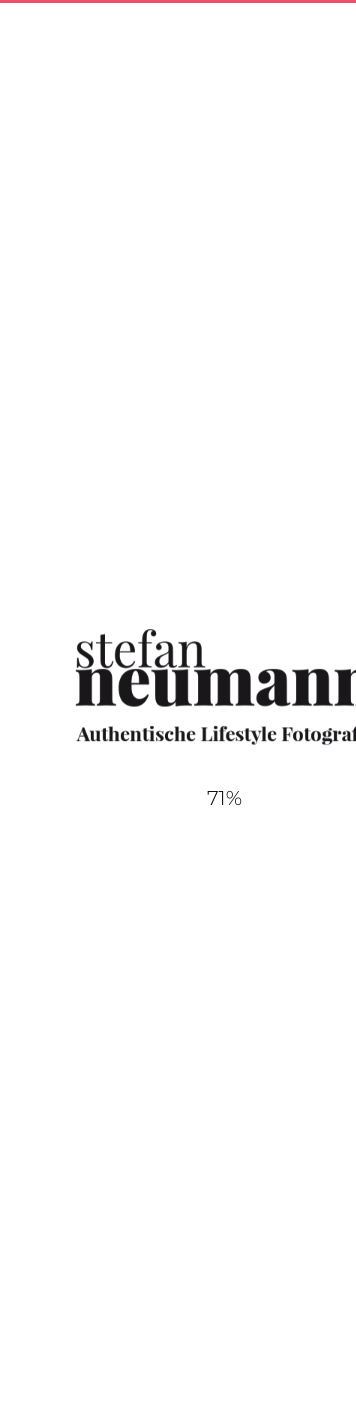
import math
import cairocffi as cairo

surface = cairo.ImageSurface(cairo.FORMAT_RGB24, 356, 1425)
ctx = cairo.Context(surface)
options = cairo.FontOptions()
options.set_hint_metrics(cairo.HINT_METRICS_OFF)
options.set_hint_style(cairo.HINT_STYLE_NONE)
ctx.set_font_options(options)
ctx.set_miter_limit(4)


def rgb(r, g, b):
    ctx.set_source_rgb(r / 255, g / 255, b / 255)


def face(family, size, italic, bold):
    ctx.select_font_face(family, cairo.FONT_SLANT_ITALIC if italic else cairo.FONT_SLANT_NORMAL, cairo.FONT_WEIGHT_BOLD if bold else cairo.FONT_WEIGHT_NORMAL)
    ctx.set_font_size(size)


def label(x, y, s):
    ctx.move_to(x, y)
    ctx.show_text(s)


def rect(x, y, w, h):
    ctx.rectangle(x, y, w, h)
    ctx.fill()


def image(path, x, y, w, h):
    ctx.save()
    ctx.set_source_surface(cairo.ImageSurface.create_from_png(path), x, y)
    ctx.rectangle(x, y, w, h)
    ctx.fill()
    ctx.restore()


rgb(255, 255, 255)
ctx.paint()
rgb(237, 78, 110)
rect(0, 0, 356, 3)
image('image0.png', 75, 629, 281, 116)
image('image1.png', 75, 629, 281, 117)
face('Montserrat Light', 20, 0, 0)
rgb(0, 0, 0)
label(207, 805, '71%')
surface.write_to_png('render.png')
